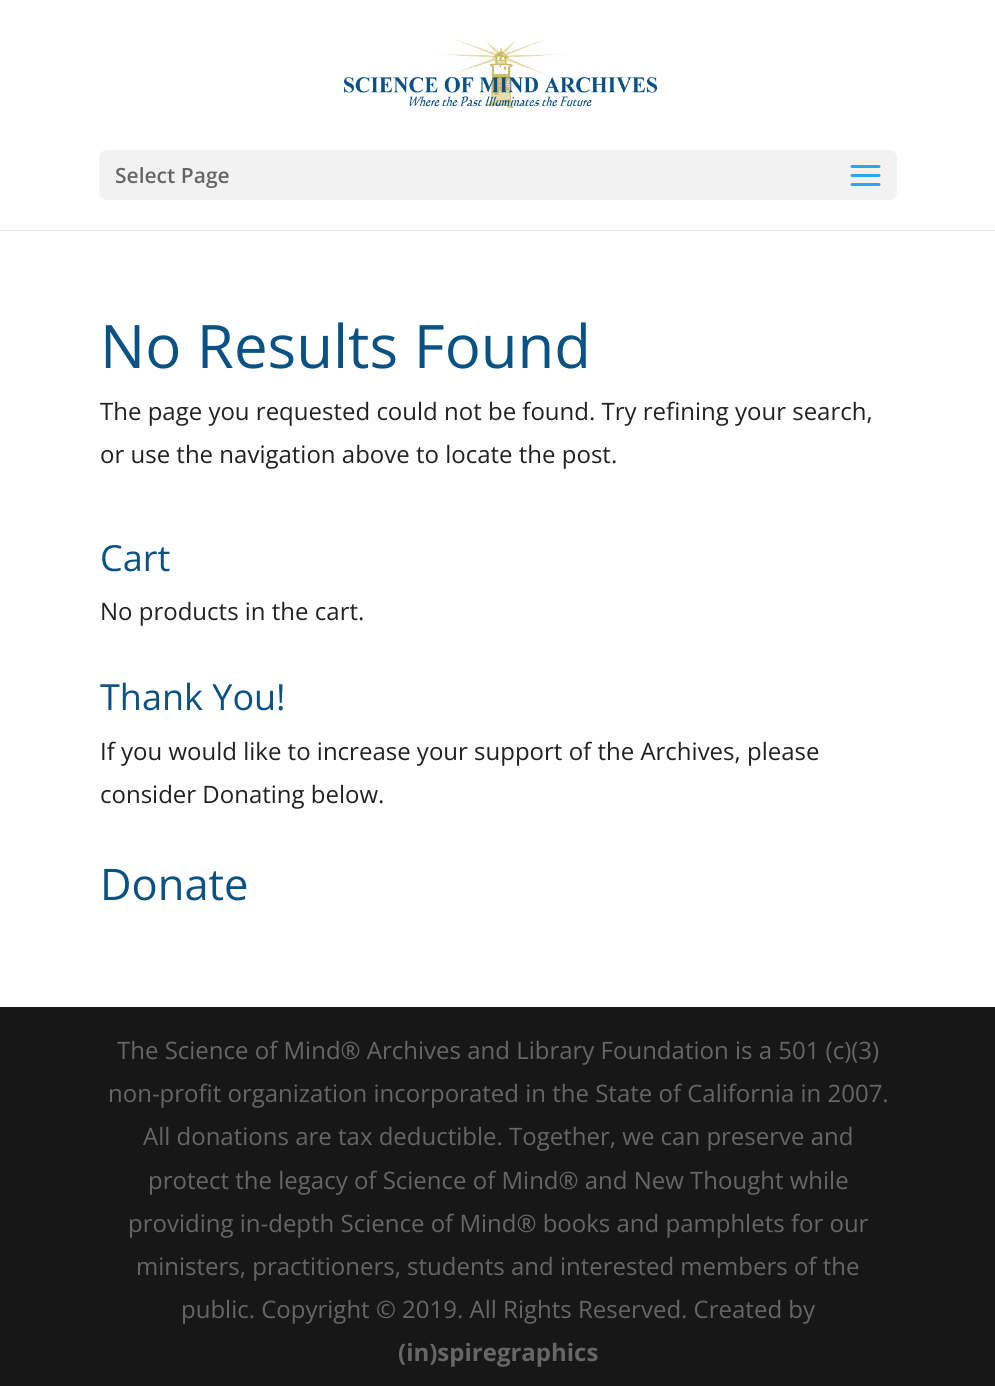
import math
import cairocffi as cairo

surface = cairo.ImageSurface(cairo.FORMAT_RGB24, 995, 1386)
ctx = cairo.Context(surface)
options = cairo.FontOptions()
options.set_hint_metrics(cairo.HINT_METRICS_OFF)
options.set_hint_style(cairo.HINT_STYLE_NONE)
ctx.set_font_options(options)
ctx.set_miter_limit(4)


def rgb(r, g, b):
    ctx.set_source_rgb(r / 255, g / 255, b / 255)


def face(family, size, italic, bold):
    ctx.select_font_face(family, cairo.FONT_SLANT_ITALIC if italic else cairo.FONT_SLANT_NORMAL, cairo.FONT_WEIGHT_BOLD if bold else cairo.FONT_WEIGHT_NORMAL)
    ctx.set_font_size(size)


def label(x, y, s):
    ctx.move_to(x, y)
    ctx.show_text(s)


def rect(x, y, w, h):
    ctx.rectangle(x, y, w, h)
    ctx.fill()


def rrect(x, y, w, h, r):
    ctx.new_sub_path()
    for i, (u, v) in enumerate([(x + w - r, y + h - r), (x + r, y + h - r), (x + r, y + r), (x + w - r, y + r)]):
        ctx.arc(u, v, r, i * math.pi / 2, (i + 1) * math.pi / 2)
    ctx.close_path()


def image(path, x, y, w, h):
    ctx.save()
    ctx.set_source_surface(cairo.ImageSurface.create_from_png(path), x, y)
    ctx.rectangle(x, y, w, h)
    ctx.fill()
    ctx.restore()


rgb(255, 255, 255)
ctx.paint()
rgb(230, 230, 230)
rect(0, 230, 995, 1)
image('image0.png', 344, 39, 314, 69)
rgb(242, 242, 242)
rrect(99, 150, 798, 50, 8)
ctx.fill()
face('Open Sans SemiBold', 21, 0, 0)
rgb(102, 102, 102)
label(115, 183, 'Select Page')
image('image1.png', 850, 165, 31, 21)
face('Open Sans', 60, 0, 0)
rgb(11, 82, 132)
label(100, 368, 'No Results Found')
face('Open Sans', 24, 0, 0)
rgb(33, 33, 33)
label(100, 420, 'The page you requested could not be found. Try refining your search,')
label(100, 463, 'or use the navigation above to locate the post.')
face('Open Sans', 36, 0, 0)
rgb(11, 82, 132)
label(100, 571, 'Cart')
face('Open Sans', 24, 0, 0)
rgb(33, 33, 33)
label(100, 620, 'No products in the cart.')
face('Open Sans', 36, 0, 0)
rgb(11, 82, 132)
label(100, 710, 'Thank You!')
face('Open Sans', 24, 0, 0)
rgb(33, 33, 33)
label(100, 760, 'If you would like to increase your support of the Archives, please')
label(100, 803, 'consider Donating below.')
face('Open Sans', 43.5, 0, 0)
rgb(11, 82, 132)
label(100, 900, 'Donate')
rgb(23, 23, 23)
rect(0, 1007, 995, 379)
face('Open Sans', 24, 0, 0)
rgb(102, 102, 102)
label(117, 1059, 'The Science of Mind® Archives and Library Foundation is a 501 (c)(3)')
label(108, 1102, 'non-profit organization incorporated in the State of California in 2007.')
label(143, 1145, 'All donations are tax deductible. Together, we can preserve and')
label(148, 1189, 'protect the legacy of Science of Mind® and New Thought while')
label(128, 1232, 'providing in-depth Science of Mind® books and pamphlets for our')
label(136, 1275, 'ministers, practitioners, students and interested members of the')
label(181, 1318, 'public. Copyright © 2019. All Rights Reserved. Created by')
face('Open Sans', 24, 0, 1)
label(398, 1361, '(in)spiregraphics')
surface.write_to_png('render.png')
